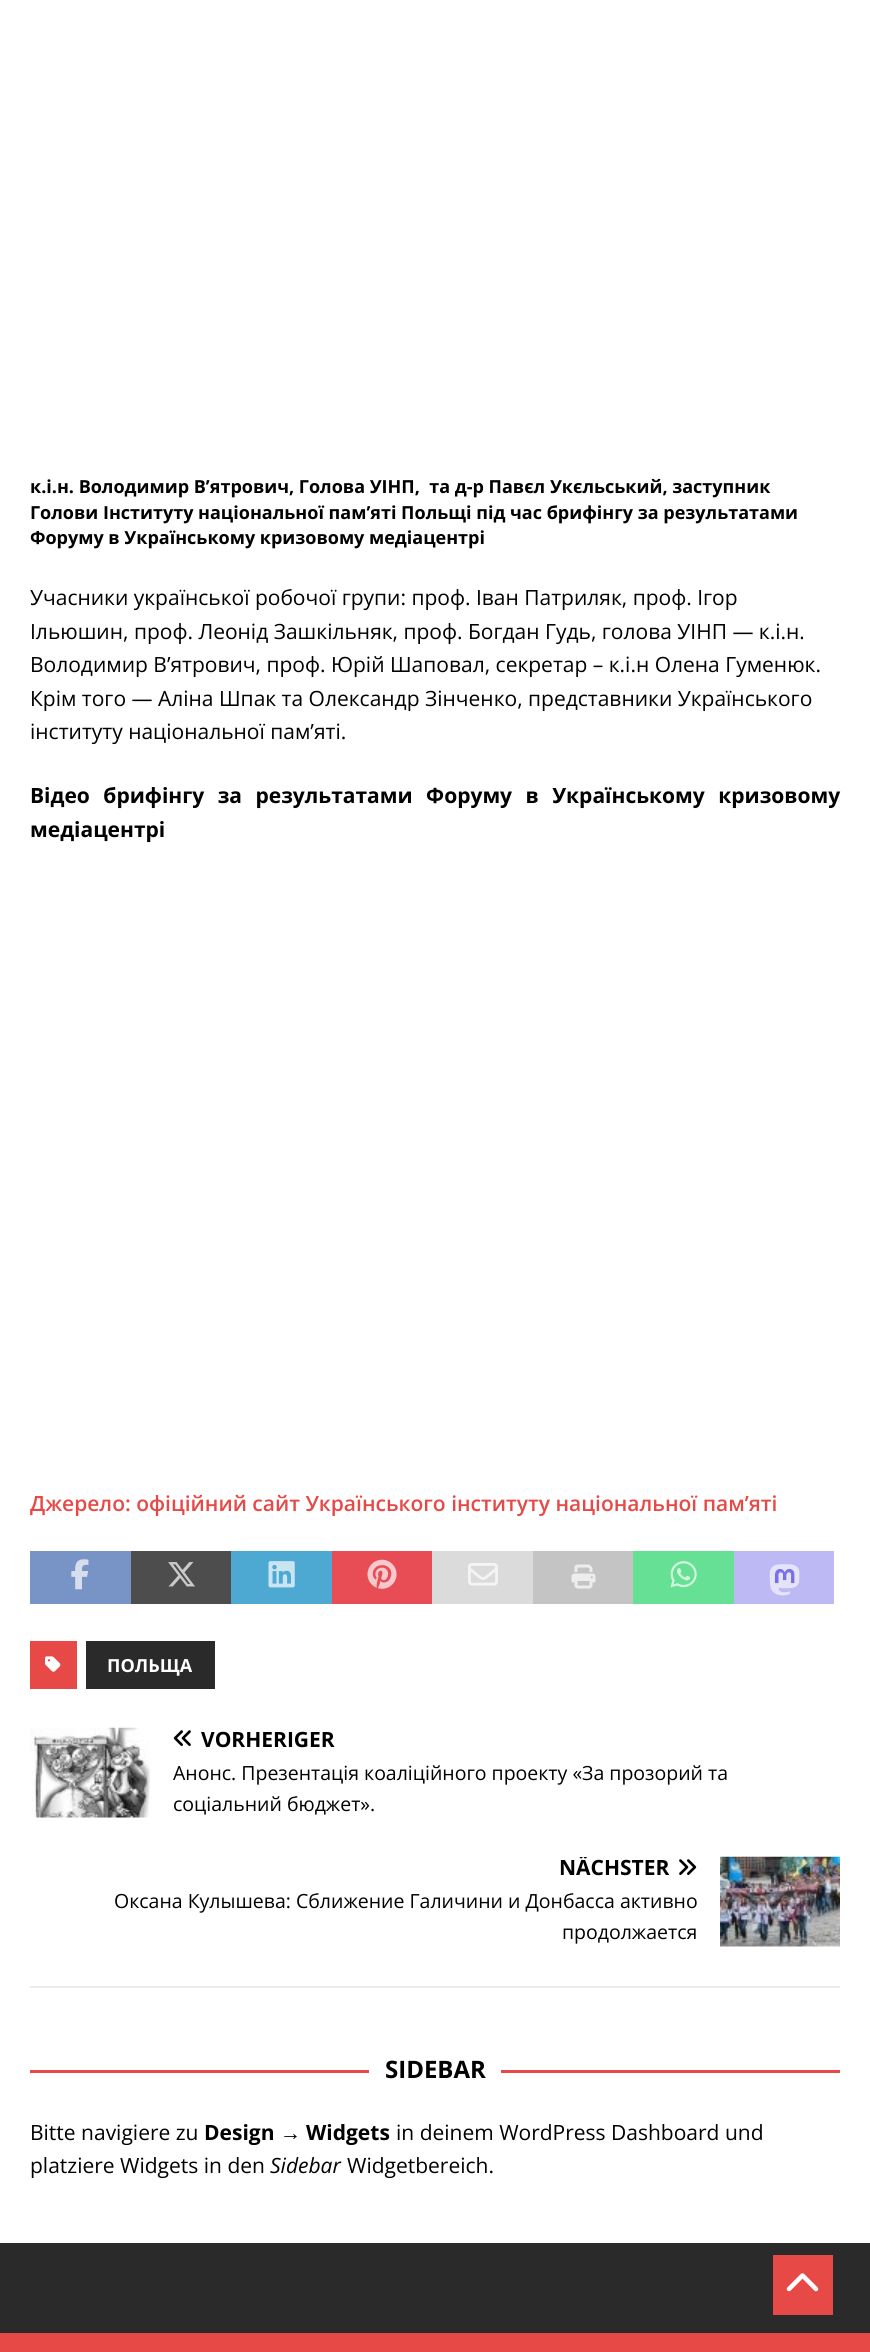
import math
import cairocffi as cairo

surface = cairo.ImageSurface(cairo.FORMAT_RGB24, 870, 2352)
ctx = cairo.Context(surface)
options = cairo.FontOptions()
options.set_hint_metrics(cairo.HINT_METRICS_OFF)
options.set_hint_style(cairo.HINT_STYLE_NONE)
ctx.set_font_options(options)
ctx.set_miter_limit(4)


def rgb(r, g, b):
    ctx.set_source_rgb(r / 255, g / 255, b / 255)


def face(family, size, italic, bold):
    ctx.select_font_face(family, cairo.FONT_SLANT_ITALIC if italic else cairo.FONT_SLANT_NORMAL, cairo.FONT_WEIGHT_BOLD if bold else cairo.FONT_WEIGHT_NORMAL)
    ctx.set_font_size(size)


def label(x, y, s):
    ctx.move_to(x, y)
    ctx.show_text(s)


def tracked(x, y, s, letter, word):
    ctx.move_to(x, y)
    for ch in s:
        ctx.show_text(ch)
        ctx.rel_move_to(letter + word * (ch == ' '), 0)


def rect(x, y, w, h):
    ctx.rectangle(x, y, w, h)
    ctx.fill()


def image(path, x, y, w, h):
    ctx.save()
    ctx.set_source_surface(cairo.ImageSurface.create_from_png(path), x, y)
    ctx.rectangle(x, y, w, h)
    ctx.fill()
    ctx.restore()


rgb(230, 73, 70)
ctx.paint()
rgb(255, 255, 255)
rect(0, 0, 870, 2243)
face('Open Sans', 18, 0, 1)
rgb(0, 0, 0)
label(30, 493, 'к.і.н. Володимир В’ятрович, Голова УІНП,  та д-р Павєл Укєльський, заступник')
label(30, 519, 'Голови Інституту національної пам’яті Польщі під час брифінгу за результатами')
label(30, 544, 'Форуму в Українському кризовому медіацентрі')
face('Open Sans', 21, 0, 0)
label(30, 605, 'Учасники української робочої групи: проф. Іван Патриляк, проф. Ігор')
label(30, 639, 'Ільюшин, проф. Леонід Зашкільняк, проф. Богдан Гудь, голова УІНП — к.і.н.')
label(30, 672, 'Володимир В’ятрович, проф. Юрій Шаповал, секретар – к.і.н Олена Гуменюк.')
label(30, 706, 'Крім того — Аліна Шпак та Олександр Зінченко, представники Українського')
label(30, 739, 'інституту національної пам’яті.')
face('Open Sans', 21, 0, 1)
tracked(30, 803, 'Відео брифінгу за результатами Форуму в Українському кризовому', 0, 8)
label(30, 837, 'медіацентрі')
face('Open Sans SemiBold', 21, 0, 0)
rgb(230, 73, 70)
label(30, 1511, 'Джерело: офіційний сайт Українського інституту національної пам’яті')
rgb(120, 147, 198)
rect(30, 1551, 101, 53)
image('image0.png', 71, 1559, 18, 31)
rgb(77, 77, 77)
rect(131, 1551, 100, 53)
image('image1.png', 168, 1562, 27, 25)
rgb(77, 169, 210)
rect(231, 1551, 101, 53)
image('image2.png', 268, 1561, 27, 27)
rgb(232, 77, 86)
rect(332, 1551, 100, 53)
image('image3.png', 367, 1559, 30, 30)
rgb(219, 219, 219)
rect(432, 1551, 101, 53)
image('image4.png', 468, 1563, 30, 23)
rgb(196, 196, 196)
rect(533, 1551, 100, 53)
image('image5.png', 571, 1564, 25, 25)
rgb(102, 224, 148)
rect(633, 1551, 101, 53)
image('image6.png', 670, 1561, 27, 27)
rgb(189, 185, 245)
rect(734, 1551, 100, 53)
image('image7.png', 769, 1564, 31, 32)
rgb(230, 73, 70)
rect(30, 1641, 47, 48)
image('image8.png', 45, 1656, 16, 16)
rgb(42, 42, 42)
rect(86, 1641, 129, 48)
face('Open Sans', 18, 0, 1)
rgb(255, 255, 255)
label(107, 1672, 'ПОЛЬЩА')
rgb(235, 235, 235)
rect(30, 1986, 810, 2)
image('image9.png', 30, 1727, 120, 91)
image('image10.png', 173, 1730, 18, 16)
face('Open Sans', 21, 0, 1)
rgb(0, 0, 0)
label(201, 1747, 'VORHERIGER')
face('Open Sans', 19.5, 0, 0)
label(173, 1780, 'Анонс. Презентація коаліційного проекту «За прозорий та')
label(173, 1811, 'соціальний бюджет».')
ctx.save()
ctx.rectangle(30, 1857, 668, 21)
ctx.clip()
face('Open Sans', 21, 0, 1)
label(559, 1875, 'NÄCHSTER')
ctx.restore()
image('image11.png', 679, 1859, 18, 16)
image('image12.png', 720, 1856, 120, 91)
label(114, 1908, 'Оксана Кулышева: Сближение Галичини и Донбасса активно')
label(562, 1939, 'продолжается')
rgb(230, 73, 70)
rect(30, 2070, 810, 3)
rgb(255, 255, 255)
rect(369, 2070, 132, 3)
face('Open Sans', 24, 0, 1)
rgb(0, 0, 0)
label(385, 2078, 'SIDEBAR')
face('Open Sans', 21, 0, 0)
label(30, 2140, 'Bitte navigiere zu')
face('Open Sans', 21, 0, 1)
label(204, 2140, 'Design')
face('Liberation Sans', 21, 0, 1)
label(280, 2140, '→')
face('Open Sans', 21, 0, 1)
label(306, 2140, 'Widgets')
face('Open Sans', 21, 0, 0)
label(396, 2140, 'in deinem WordPress Dashboard und')
label(30, 2173, 'platziere Widgets in den')
face('Open Sans', 21, 1, 0)
label(270, 2173, 'Sidebar')
face('Open Sans', 21, 0, 0)
label(347, 2173, 'Widgetbereich.')
rgb(42, 42, 42)
rect(0, 2243, 870, 90)
rgb(230, 73, 70)
rect(773, 2255, 60, 60)
image('image13.png', 786, 2273, 33, 19)
surface.write_to_png('render.png')
